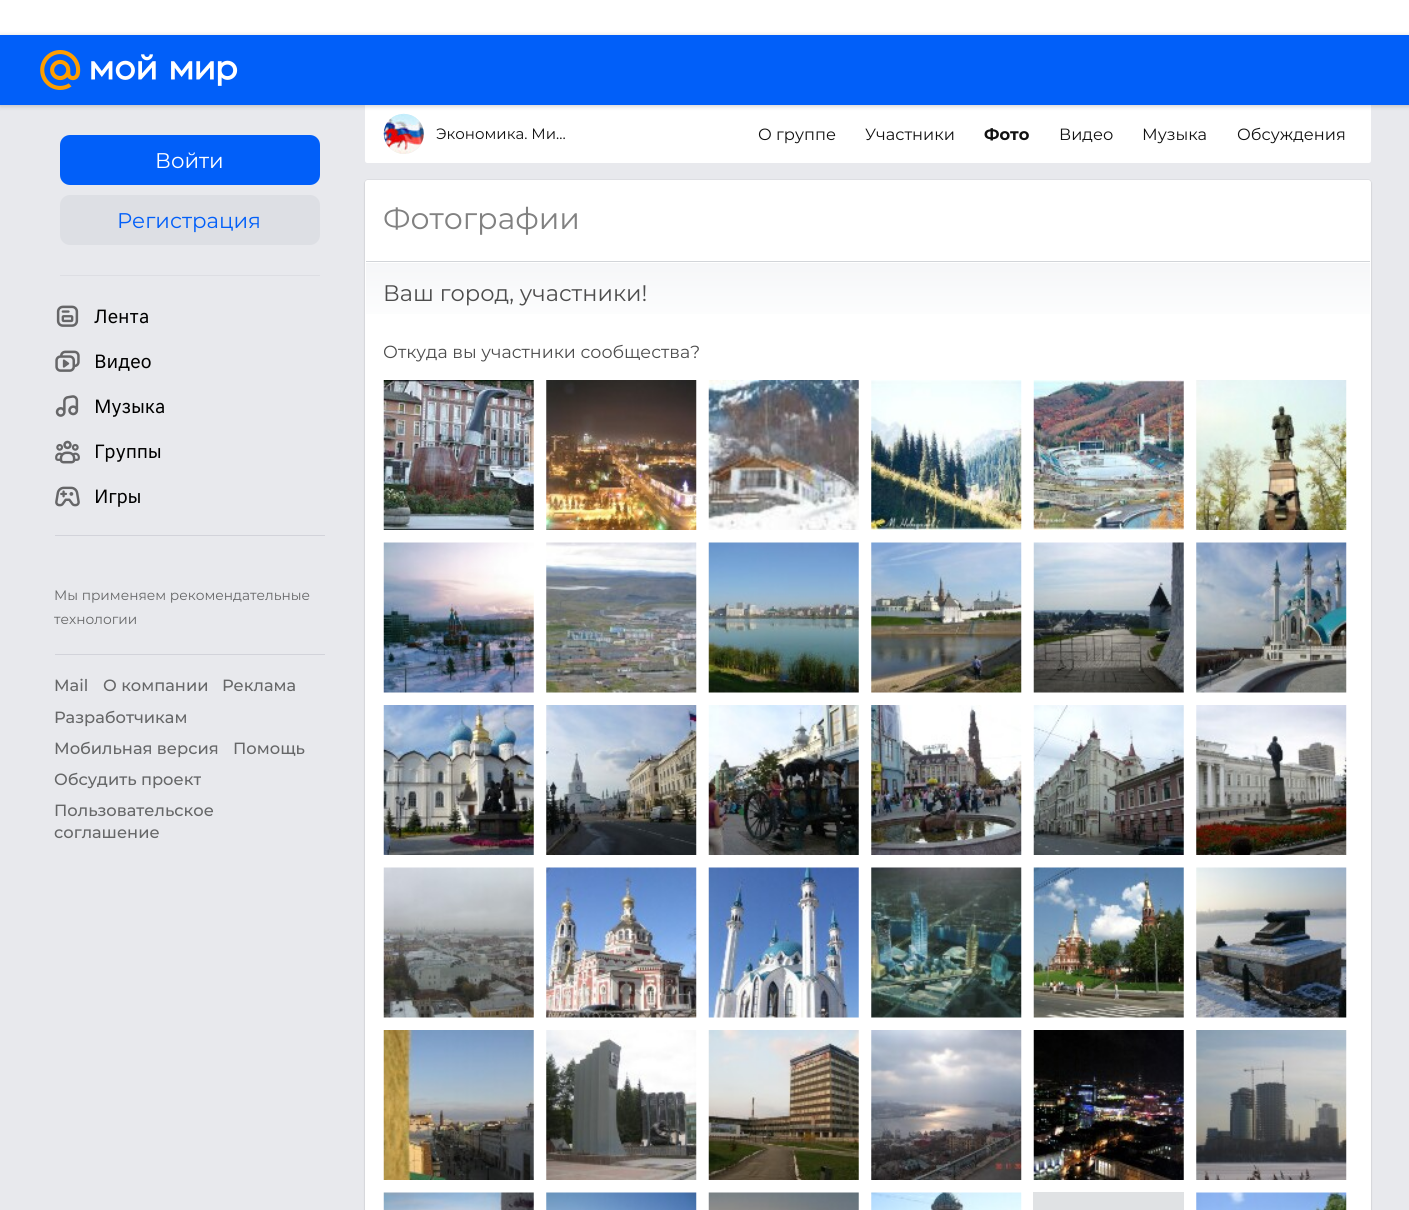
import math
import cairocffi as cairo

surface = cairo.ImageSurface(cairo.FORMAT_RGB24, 1409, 1210)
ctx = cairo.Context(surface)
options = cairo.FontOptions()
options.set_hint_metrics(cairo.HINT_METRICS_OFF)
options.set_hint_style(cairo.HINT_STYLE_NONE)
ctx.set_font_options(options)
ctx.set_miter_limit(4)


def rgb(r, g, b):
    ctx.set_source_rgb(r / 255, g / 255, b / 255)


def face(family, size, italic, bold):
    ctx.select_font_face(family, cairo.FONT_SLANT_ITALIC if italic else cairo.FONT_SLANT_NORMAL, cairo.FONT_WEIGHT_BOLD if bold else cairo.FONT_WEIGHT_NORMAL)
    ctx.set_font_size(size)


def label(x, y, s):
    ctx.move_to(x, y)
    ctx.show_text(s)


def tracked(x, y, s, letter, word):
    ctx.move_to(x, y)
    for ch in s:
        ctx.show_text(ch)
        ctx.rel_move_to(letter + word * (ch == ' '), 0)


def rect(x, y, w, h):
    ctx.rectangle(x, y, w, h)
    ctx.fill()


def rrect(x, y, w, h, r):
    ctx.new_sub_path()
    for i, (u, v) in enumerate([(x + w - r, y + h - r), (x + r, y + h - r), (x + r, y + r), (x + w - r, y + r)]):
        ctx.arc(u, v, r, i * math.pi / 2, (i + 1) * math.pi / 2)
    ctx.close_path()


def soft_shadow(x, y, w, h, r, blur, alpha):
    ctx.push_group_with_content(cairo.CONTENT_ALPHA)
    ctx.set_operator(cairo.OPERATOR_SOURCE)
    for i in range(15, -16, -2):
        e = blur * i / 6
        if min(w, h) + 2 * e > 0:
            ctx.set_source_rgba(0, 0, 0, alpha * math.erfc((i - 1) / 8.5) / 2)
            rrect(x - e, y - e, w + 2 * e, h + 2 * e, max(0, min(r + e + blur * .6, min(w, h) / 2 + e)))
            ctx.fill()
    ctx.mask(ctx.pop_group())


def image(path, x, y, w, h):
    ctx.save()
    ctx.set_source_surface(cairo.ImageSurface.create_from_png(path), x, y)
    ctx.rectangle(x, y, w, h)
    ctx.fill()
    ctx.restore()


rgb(232, 233, 237)
ctx.paint()
rgb(255, 255, 255)
rect(0, 0, 1409, 35)
ctx.new_path()
ctx.move_to(365, 105)
ctx.line_to(1371, 105)
ctx.line_to(1371, 160.5)
ctx.curve_to(1371, 162, 1370, 163, 1368.5, 163)
ctx.line_to(367.5, 163)
ctx.curve_to(366, 163, 365, 162, 365, 160.5)
ctx.close_path()
ctx.fill()
rgb(240, 240, 240)
ctx.arc(404, 134, 20, 0, 2 * math.pi)
ctx.fill()
image('image6.png', 383, 113, 41, 41)
rgb(0, 0, 0)
soft_shadow(0, 36, 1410, 70, 0, 2.5, 0.2)
rgb(1, 95, 249)
rect(0, 35, 1409, 70)
image('image0.png', 40, 50, 198, 40)
rrect(60, 135, 260, 50, 10)
ctx.fill()
face('Montserrat', 21.25, 0, 0)
rgb(255, 255, 255)
label(155, 168, 'Войти')
rgb(221, 223, 228)
rrect(60, 195, 260, 50, 10)
ctx.fill()
rgb(1, 95, 249)
label(117, 228, 'Регистрация')
rgb(221, 222, 227)
rect(60, 275, 260, 1)
image('image1.png', 56, 305, 23, 22)
face('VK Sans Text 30', 19, 0, 0)
rgb(0, 0, 0)
tracked(94, 323, 'Лента', -0.25, 0)
image('image2.png', 55, 350, 25, 22)
tracked(94, 368, 'Видео', -0.25, 0)
image('image3.png', 55, 395, 24, 22)
tracked(94, 413, 'Музыка', -0.25, 0)
image('image4.png', 55, 440, 25, 24)
tracked(94, 458, 'Группы', -0.25, 0)
image('image5.png', 55, 486, 25, 21)
tracked(94, 503, 'Игры', -0.25, 0)
rgb(210, 211, 218)
rect(55, 535, 270, 1)
face('Montserrat', 13.75, 0, 0)
rgb(102, 103, 104)
label(54, 600, 'Мы применяем рекомендательные')
label(54, 624, 'технологии')
rgb(210, 211, 218)
rect(55, 654, 270, 1)
face('Montserrat Medium', 16.25, 0, 0)
rgb(102, 103, 104)
label(54, 691, 'Mail')
label(103, 691, 'О компании')
label(222, 691, 'Реклама')
label(54, 723, 'Разработчикам')
label(54, 754, 'Мобильная версия')
label(233, 754, 'Помощь')
label(54, 785, 'Обсудить проект')
label(54, 816, 'Пользовательское')
label(54, 838, 'соглашение')
rgb(0, 0, 0)
soft_shadow(365, 181, 1006, 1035, 2.5, 1, 0.12)
soft_shadow(365, 180, 1006, 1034, 2.5, 0.5, 0.15)
rgb(255, 255, 255)
rrect(365, 180, 1006, 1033, 2.5)
ctx.fill()
face('Montserrat', 15, 0, 0)
rgb(17, 17, 17)
label(436, 139, 'Экономика. Ми…')
face('Montserrat', 16.25, 0, 0)
label(758, 140, 'О группе')
label(865, 140, 'Участники')
face('Montserrat', 16.25, 0, 1)
label(984, 140, 'Фото')
face('Montserrat', 16.25, 0, 0)
label(1059, 140, 'Видео')
label(1142, 140, 'Музыка')
label(1237, 140, 'Обсуждения')
face('Montserrat', 30, 0, 0)
rgb(129, 129, 129)
label(383, 229, 'Фотографии')
gradient = cairo.LinearGradient(868, 262, 868, 331)
gradient.add_color_stop_rgba(0, 0.961, 0.965, 0.973, 1)
gradient.add_color_stop_rgba(1, 1, 1, 1, 1)
ctx.set_source(gradient)
rect(366, 263, 1004, 51)
rgb(210, 213, 217)
rect(366, 261, 1004, 1)
face('Montserrat', 22.5, 0, 0)
rgb(77, 77, 77)
label(383, 301, 'Ваш город, участники!')
face('Montserrat', 17.5, 0, 0)
label(383, 358, 'Откуда вы участники сообщества?')
image('image7.png', 383, 380, 151, 150)
image('image8.png', 546, 380, 151, 150)
image('image9.png', 708, 380, 151, 150)
image('image10.png', 871, 380, 151, 150)
image('image11.png', 1033, 380, 151, 150)
image('image12.png', 1196, 380, 151, 150)
image('image13.png', 383, 542, 151, 151)
image('image14.png', 546, 542, 151, 151)
image('image15.png', 708, 542, 151, 151)
image('image16.png', 871, 542, 151, 151)
image('image17.png', 1033, 542, 151, 151)
image('image18.png', 1196, 542, 151, 151)
image('image19.png', 383, 705, 151, 150)
image('image20.png', 546, 705, 151, 150)
image('image21.png', 708, 705, 151, 150)
image('image22.png', 871, 705, 151, 150)
image('image23.png', 1033, 705, 151, 150)
image('image24.png', 1196, 705, 151, 150)
image('image25.png', 383, 867, 151, 151)
image('image26.png', 546, 867, 151, 151)
image('image27.png', 708, 867, 151, 151)
image('image28.png', 871, 867, 151, 151)
image('image29.png', 1033, 867, 151, 151)
image('image30.png', 1196, 867, 151, 151)
image('image31.png', 383, 1030, 151, 150)
image('image32.png', 546, 1030, 151, 150)
image('image33.png', 708, 1030, 151, 150)
image('image34.png', 871, 1030, 151, 150)
image('image35.png', 1033, 1030, 151, 150)
image('image36.png', 1196, 1030, 151, 150)
image('image37.png', 383, 1192, 151, 18)
image('image38.png', 546, 1192, 151, 18)
image('image39.png', 708, 1192, 151, 18)
image('image40.png', 871, 1192, 151, 18)
rgb(224, 226, 228)
rect(1033, 1192, 151, 18)
image('image41.png', 1196, 1192, 151, 18)
surface.write_to_png('render.png')
